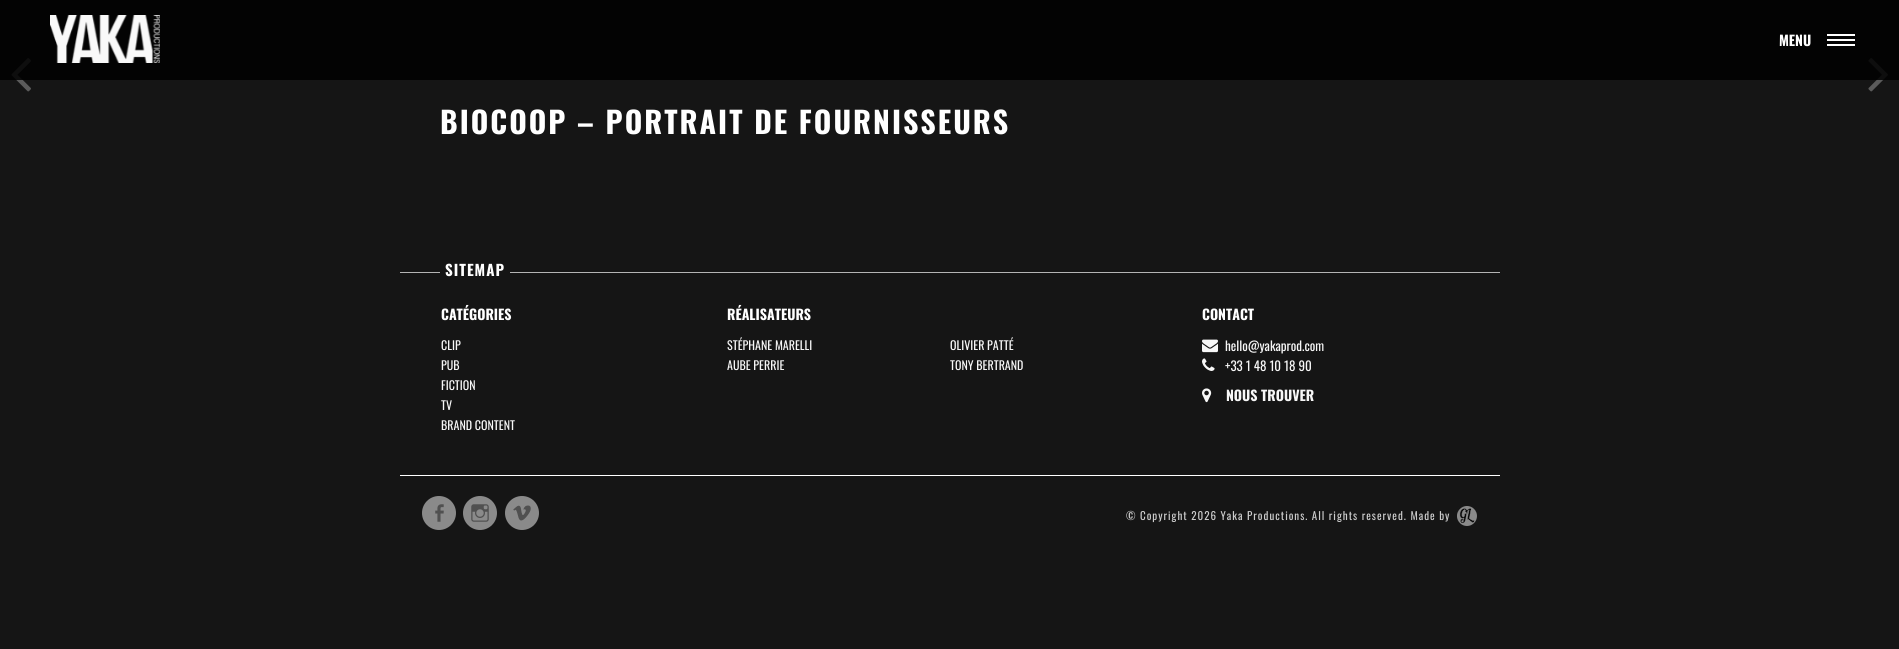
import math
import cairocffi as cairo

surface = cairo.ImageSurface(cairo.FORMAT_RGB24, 1899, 649)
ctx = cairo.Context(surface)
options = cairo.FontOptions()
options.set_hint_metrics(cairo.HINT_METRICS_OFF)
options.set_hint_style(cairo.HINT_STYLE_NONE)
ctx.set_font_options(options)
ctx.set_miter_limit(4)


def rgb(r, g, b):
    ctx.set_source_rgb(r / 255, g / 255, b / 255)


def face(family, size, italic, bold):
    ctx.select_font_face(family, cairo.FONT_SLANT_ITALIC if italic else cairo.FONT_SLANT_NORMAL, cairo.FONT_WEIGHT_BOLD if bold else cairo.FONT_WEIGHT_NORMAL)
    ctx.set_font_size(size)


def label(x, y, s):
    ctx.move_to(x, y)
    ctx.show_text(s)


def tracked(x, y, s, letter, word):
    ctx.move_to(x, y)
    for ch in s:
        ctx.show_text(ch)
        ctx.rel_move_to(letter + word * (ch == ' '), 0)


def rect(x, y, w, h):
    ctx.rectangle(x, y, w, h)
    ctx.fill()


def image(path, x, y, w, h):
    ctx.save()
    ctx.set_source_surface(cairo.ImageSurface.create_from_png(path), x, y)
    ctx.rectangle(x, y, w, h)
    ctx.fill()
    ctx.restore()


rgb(21, 21, 21)
ctx.paint()
image('image1.png', 11, 58, 20, 34)
image('image2.png', 1868, 58, 20, 34)
ctx.set_source_rgba(0, 0, 0, 0.85)
rect(0, 0, 1899, 80)
image('image0.png', 50, 15, 110, 48)
face('Oswald', 14, 0, 1)
rgb(255, 255, 255)
label(1779, 46, 'MENU')
rect(1827, 39, 28, 2)
rect(1827, 34, 28, 2)
rect(1827, 44, 28, 2)
face('Oswald', 30, 0, 1)
tracked(440, 134, 'BIOCOOP – PORTRAIT DE FOURNISSEURS', 2, 0)
rgb(180, 180, 180)
rect(400, 272, 1100, 1)
rgb(21, 21, 21)
rect(440, 272, 70, 1)
face('Oswald', 15, 0, 1)
rgb(255, 255, 255)
tracked(445, 276, 'SITEMAP', 1, 0)
face('Oswald', 14, 0, 1)
label(441, 320, 'CATÉGORIES')
face('Oswald', 12, 0, 0)
rgb(247, 247, 247)
label(441, 350, 'CLIP')
label(441, 370, 'PUB')
label(441, 390, 'FICTION')
label(441, 410, 'TV')
label(441, 430, 'BRAND CONTENT')
face('Oswald', 14, 0, 1)
rgb(255, 255, 255)
label(727, 320, 'RÉALISATEURS')
face('Oswald', 12, 0, 0)
rgb(247, 247, 247)
label(727, 350, 'STÉPHANE MARELLI')
label(950, 350, 'OLIVIER PATTÉ')
label(727, 370, 'AUBE PERRIE')
label(950, 370, 'TONY BERTRAND')
face('Oswald', 14, 0, 1)
rgb(255, 255, 255)
label(1202, 320, 'CONTACT')
image('image3.png', 1202, 339, 16, 14)
face('Oswald', 13, 0, 0)
rgb(247, 247, 247)
label(1225, 351, 'hello@yakaprod.com')
image('image4.png', 1202, 358, 13, 13)
label(1225, 371, '+33 1 48 10 18 90')
image('image5.png', 1202, 388, 10, 15)
face('Oswald', 14, 0, 1)
label(1226, 401, 'NOUS TROUVER')
rgb(255, 255, 255)
rect(400, 475, 1100, 1)
rgb(138, 138, 138)
ctx.new_path()
ctx.arc(439, 513, 17, 0, 2 * math.pi)
ctx.fill()
image('image6.png', 435, 504, 9, 18)
ctx.arc(480, 513, 17, 0, 2 * math.pi)
ctx.fill()
image('image7.png', 471, 504, 18, 18)
ctx.arc(522, 513, 17, 0, 2 * math.pi)
ctx.fill()
image('image8.png', 513, 505, 18, 16)
face('Oswald', 11, 0, 0)
rgb(204, 204, 204)
tracked(1126, 520, '© Copyright 2026 Yaka Productions. All rights reserved. Made by', 1, 0)
image('image9.png', 1457, 506, 20, 20)
surface.write_to_png('render.png')
